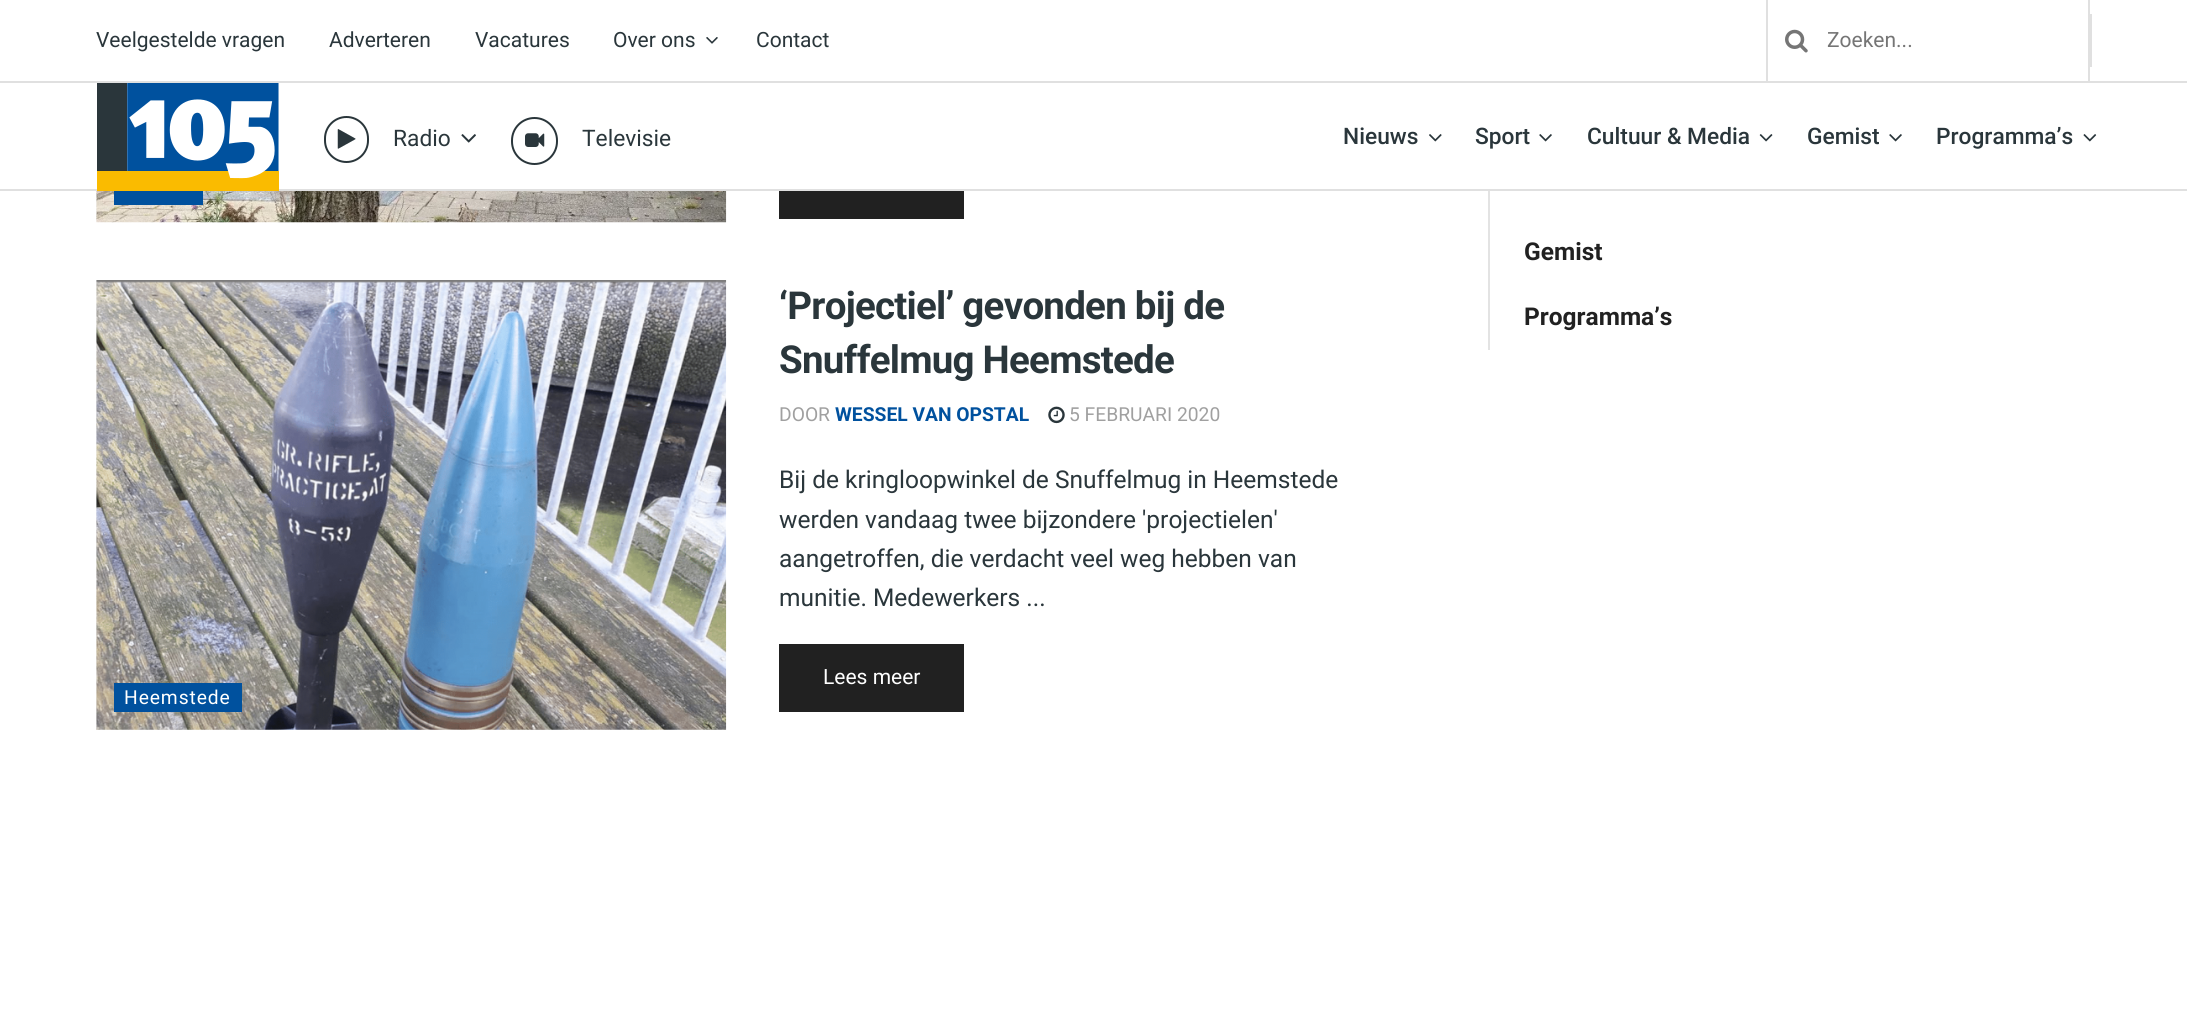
import math
import cairocffi as cairo

surface = cairo.ImageSurface(cairo.FORMAT_RGB24, 2187, 1030)
ctx = cairo.Context(surface)
options = cairo.FontOptions()
options.set_hint_metrics(cairo.HINT_METRICS_OFF)
options.set_hint_style(cairo.HINT_STYLE_NONE)
ctx.set_font_options(options)
ctx.set_miter_limit(4)


def rgb(r, g, b):
    ctx.set_source_rgb(r / 255, g / 255, b / 255)


def face(family, size, italic, bold):
    ctx.select_font_face(family, cairo.FONT_SLANT_ITALIC if italic else cairo.FONT_SLANT_NORMAL, cairo.FONT_WEIGHT_BOLD if bold else cairo.FONT_WEIGHT_NORMAL)
    ctx.set_font_size(size)


def label(x, y, s):
    ctx.move_to(x, y)
    ctx.show_text(s)


def tracked(x, y, s, letter, word):
    ctx.move_to(x, y)
    for ch in s:
        ctx.show_text(ch)
        ctx.rel_move_to(letter + word * (ch == ' '), 0)


def rect(x, y, w, h):
    ctx.rectangle(x, y, w, h)
    ctx.fill()


def rrect(x, y, w, h, r):
    ctx.new_sub_path()
    for i, (u, v) in enumerate([(x + w - r, y + h - r), (x + r, y + h - r), (x + r, y + r), (x + w - r, y + r)]):
        ctx.arc(u, v, r, i * math.pi / 2, (i + 1) * math.pi / 2)
    ctx.close_path()


def image(path, x, y, w, h):
    ctx.save()
    ctx.set_source_surface(cairo.ImageSurface.create_from_png(path), x, y)
    ctx.rectangle(x, y, w, h)
    ctx.fill()
    ctx.restore()


rgb(255, 255, 255)
ctx.paint()
rgb(224, 224, 224)
rect(0, 81, 2187, 2)
face('Roboto', 21, 0, 0)
rgb(42, 54, 59)
label(96, 47, 'Veelgestelde vragen')
label(329, 47, 'Adverteren')
label(475, 47, 'Vacatures')
label(613, 47, 'Over ons')
image('image0.png', 706, 37, 12, 7)
label(756, 47, 'Contact')
rgb(224, 224, 224)
rect(2088, 0, 2, 81)
rect(1766, 0, 2, 81)
image('image1.png', 1785, 29, 23, 24)
rgb(117, 117, 117)
label(1827, 47, 'Zoeken...')
rgb(224, 224, 224)
rect(2090, 14, 2, 53)
rect(0, 189, 2187, 2)
image('image2.png', 97, 83, 182, 108)
rrect(325, 117, 43, 45, 21.5)
rgb(42, 54, 59)
ctx.stroke()
face('Roboto', 22.75, 0, 0)
label(393, 146, 'Radio')
image('image3.png', 337, 129, 19, 20)
image('image4.png', 461, 134, 15, 9)
rrect(512, 118, 45, 46, 22.5)
ctx.stroke()
label(582, 146, 'Televisie')
image('image5.png', 525, 133, 20, 14)
face('Roboto Medium', 22.75, 0, 0)
label(1343, 144, 'Nieuws')
image('image6.png', 1429, 134, 13, 8)
label(1475, 144, 'Sport')
image('image7.png', 1539, 134, 13, 8)
label(1587, 144, 'Cultuur & Media')
image('image8.png', 1759, 134, 14, 8)
label(1807, 144, 'Gemist')
image('image7.png', 1889, 134, 13, 8)
label(1936, 144, 'Programma’s')
image('image9.png', 2083, 134, 14, 8)
rgb(247, 247, 247)
rect(96, 191, 1, 31)
image('image10.png', 96, 191, 631, 32)
rgb(0, 81, 158)
rect(114, 191, 89, 14)
rgb(33, 33, 33)
rect(779, 191, 185, 28)
face('Roboto', 38.5, 0, 1)
rgb(42, 54, 59)
tracked(779, 319, '‘Projectiel’ gevonden bij de', -0.75, 0)
tracked(779, 373, 'Snuffelmug Heemstede', -0.75, 0)
face('Roboto', 19.25, 0, 0)
rgb(160, 160, 160)
label(779, 421, 'DOOR')
face('Roboto', 19.25, 0, 1)
rgb(0, 81, 158)
label(835, 421, 'WESSEL VAN OPSTAL')
image('image11.png', 1048, 406, 17, 18)
face('Roboto', 19.25, 0, 0)
rgb(160, 160, 160)
label(1069, 421, '5 FEBRUARI 2020')
face('Roboto', 24.5, 0, 0)
rgb(42, 54, 59)
label(779, 488, 'Bij de kringloopwinkel de Snuffelmug in Heemstede')
label(779, 528, 'werden vandaag twee bijzondere \'projectielen\'')
label(779, 567, 'aangetroffen, die verdacht veel weg hebben van')
label(779, 606, 'munitie. Medewerkers ...')
rgb(33, 33, 33)
rect(779, 644, 185, 68)
face('Roboto', 21, 0, 0)
rgb(255, 255, 255)
label(823, 684, 'Lees meer')
rgb(247, 247, 247)
rect(96, 280, 630, 450)
image('image12.png', 96, 280, 631, 450)
rgb(0, 81, 158)
rect(114, 683, 128, 29)
face('Roboto', 19.25, 0, 0)
rgb(255, 255, 255)
tracked(124, 704, 'Heemstede', 0.9, 0)
rgb(227, 227, 227)
rect(1488, 191, 2, 159)
face('Roboto', 24.5, 0, 1)
rgb(33, 33, 33)
label(1524, 260, 'Gemist')
label(1524, 325, 'Programma’s')
surface.write_to_png('render.png')
